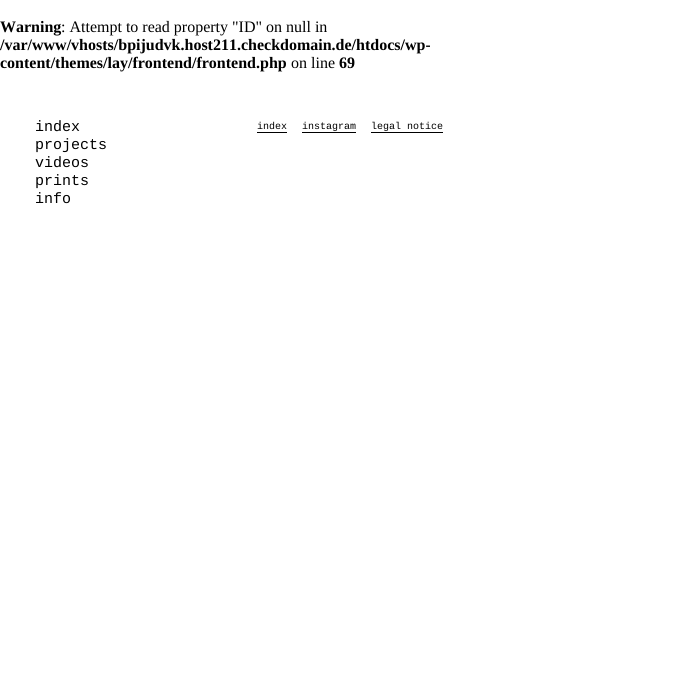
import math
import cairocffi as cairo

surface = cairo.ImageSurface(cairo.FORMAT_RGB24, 700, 700)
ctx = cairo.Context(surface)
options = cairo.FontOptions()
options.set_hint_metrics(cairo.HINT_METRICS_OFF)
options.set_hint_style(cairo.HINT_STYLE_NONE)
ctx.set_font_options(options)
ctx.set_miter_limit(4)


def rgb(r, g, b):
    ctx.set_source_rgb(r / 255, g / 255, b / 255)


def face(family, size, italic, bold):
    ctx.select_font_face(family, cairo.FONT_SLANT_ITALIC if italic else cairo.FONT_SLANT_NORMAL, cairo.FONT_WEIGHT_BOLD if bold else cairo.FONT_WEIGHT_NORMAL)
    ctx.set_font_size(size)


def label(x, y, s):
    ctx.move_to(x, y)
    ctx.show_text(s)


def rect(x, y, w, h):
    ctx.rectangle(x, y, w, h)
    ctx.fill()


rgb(255, 255, 255)
ctx.paint()
face('Liberation Serif', 16, 0, 1)
rgb(0, 0, 0)
label(0, 32, 'Warning')
face('Liberation Serif', 16, 0, 0)
label(61, 32, ': Attempt to read property "ID" on null in')
face('Liberation Serif', 16, 0, 1)
label(0, 50, '/var/www/vhosts/bpijudvk.host211.checkdomain.de/htdocs/wp-')
label(0, 68, 'content/themes/lay/frontend/frontend.php')
face('Liberation Serif', 16, 0, 0)
label(291, 68, 'on line')
face('Liberation Serif', 16, 0, 1)
label(339, 68, '69')
face('Liberation Mono', 15, 0, 0)
label(35, 131, 'index')
label(35, 149, 'projects')
label(35, 167, 'videos')
label(35, 185, 'prints')
label(35, 203, 'info')
face('Liberation Mono', 10, 0, 0)
label(257, 129, 'index')
rect(257, 132, 30, 1)
label(302, 129, 'instagram')
rect(302, 132, 54, 1)
label(371, 129, 'legal notice')
rect(371, 132, 72, 1)
surface.write_to_png('render.png')
